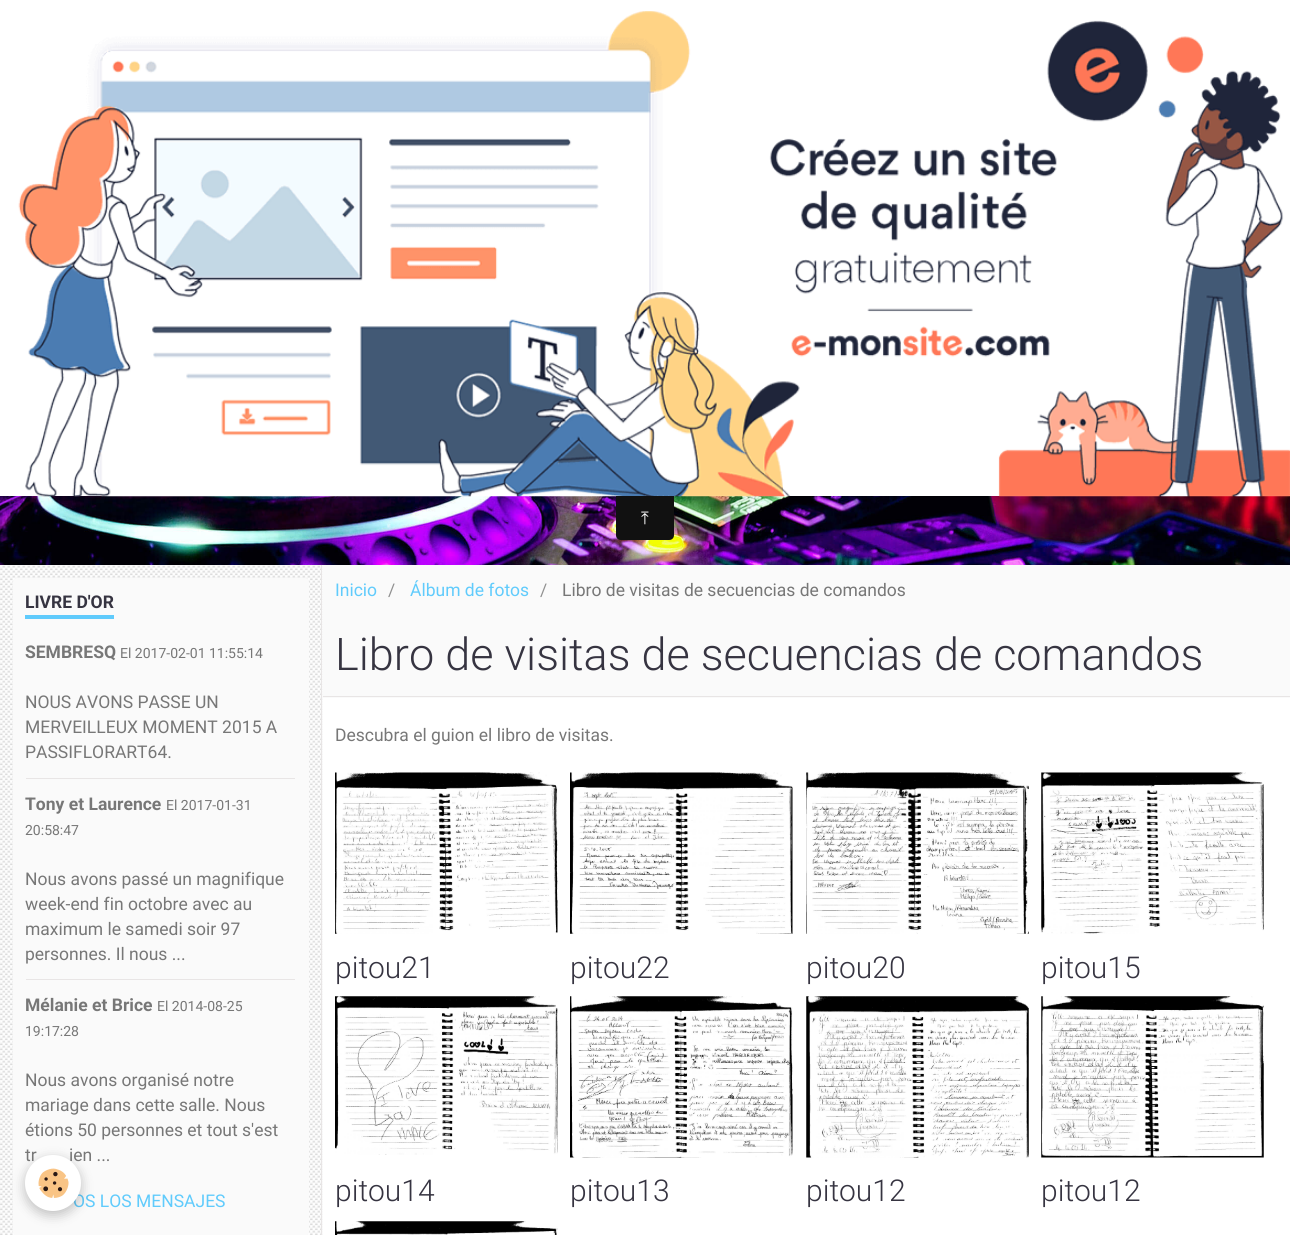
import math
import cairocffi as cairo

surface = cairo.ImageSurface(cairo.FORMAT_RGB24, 1290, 1235)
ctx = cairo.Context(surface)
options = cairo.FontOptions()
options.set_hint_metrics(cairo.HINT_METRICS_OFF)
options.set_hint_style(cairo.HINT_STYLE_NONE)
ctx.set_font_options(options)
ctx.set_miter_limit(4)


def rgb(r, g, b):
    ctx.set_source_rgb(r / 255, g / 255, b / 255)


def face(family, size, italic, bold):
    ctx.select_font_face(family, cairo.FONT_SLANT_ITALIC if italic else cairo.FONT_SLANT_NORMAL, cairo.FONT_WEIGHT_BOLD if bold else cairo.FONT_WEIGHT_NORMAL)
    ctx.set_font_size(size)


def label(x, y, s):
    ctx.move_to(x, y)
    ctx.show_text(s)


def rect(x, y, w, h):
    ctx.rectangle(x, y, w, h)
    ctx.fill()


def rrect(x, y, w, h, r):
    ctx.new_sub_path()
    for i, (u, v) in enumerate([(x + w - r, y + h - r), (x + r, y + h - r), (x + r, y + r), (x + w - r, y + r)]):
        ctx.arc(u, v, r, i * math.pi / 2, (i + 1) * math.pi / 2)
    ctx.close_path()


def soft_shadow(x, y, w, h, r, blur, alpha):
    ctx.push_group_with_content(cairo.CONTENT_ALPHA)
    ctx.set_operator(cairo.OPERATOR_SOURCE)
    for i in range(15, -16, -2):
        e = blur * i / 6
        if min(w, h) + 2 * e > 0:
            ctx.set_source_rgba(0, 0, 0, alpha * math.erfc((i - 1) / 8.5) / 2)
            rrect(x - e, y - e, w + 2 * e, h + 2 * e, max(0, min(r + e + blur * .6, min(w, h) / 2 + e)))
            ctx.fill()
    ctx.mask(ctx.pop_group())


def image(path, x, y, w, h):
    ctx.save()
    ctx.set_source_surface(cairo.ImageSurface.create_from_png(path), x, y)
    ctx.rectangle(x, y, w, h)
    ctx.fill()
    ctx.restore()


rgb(255, 255, 255)
ctx.paint()
image('image0.png', 0, 496, 1290, 69)
image('image1.png', 18, 11, 1272, 486)
rgb(17, 17, 17)
ctx.new_path()
ctx.move_to(616, 496)
ctx.line_to(674, 496)
ctx.line_to(674, 535)
ctx.curve_to(674, 538, 672, 540, 669, 540)
ctx.line_to(621, 540)
ctx.curve_to(618, 540, 616, 538, 616, 535)
ctx.close_path()
ctx.fill()
face('FreeSerif', 17.5, 0, 0)
rgb(255, 255, 255)
label(641, 524, '⤒')
image('image2.png', 0, 565, 323, 670)
rgb(232, 229, 229)
rect(321, 565, 1, 670)
rgb(250, 250, 250)
rrect(13, 578, 296, 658, 4)
ctx.fill()
face('Roboto', 17.5, 0, 1)
rgb(54, 52, 65)
label(25, 608, 'LIVRE D\'OR')
rgb(96, 203, 252)
rect(25, 615, 89, 4)
rgb(232, 229, 229)
rect(26, 778, 269, 1)
rgb(119, 119, 119)
label(25, 658, 'SEMBRESQ')
face('Roboto', 14, 0, 0)
label(120, 658, 'El 2017-02-01 11:55:14')
face('Roboto', 17.5, 0, 0)
label(25, 708, 'NOUS AVONS PASSE UN')
label(25, 733, 'MERVEILLEUX MOMENT 2015 A')
label(25, 758, 'PASSIFLORART64.')
rgb(232, 229, 229)
rect(26, 979, 269, 1)
face('Roboto', 17.5, 0, 1)
rgb(119, 119, 119)
label(25, 810, 'Tony et Laurence')
face('Roboto', 14, 0, 0)
label(166, 810, 'El 2017-01-31')
label(25, 835, '20:58:47')
face('Roboto', 17.5, 0, 0)
label(25, 885, 'Nous avons passé un magnifique')
label(25, 910, 'week-end fin octobre avec au')
label(25, 935, 'maximum le samedi soir 97')
label(25, 960, 'personnes. Il nous ...')
face('Roboto', 17.5, 0, 1)
label(25, 1011, 'Mélanie et Brice')
face('Roboto', 14, 0, 0)
label(157, 1011, 'El 2014-08-25')
label(25, 1036, '19:17:28')
face('Roboto', 17.5, 0, 0)
label(25, 1086, 'Nous avons organisé notre')
label(25, 1111, 'mariage dans cette salle. Nous')
label(25, 1136, 'étions 50 personnes et tout s\'est')
label(25, 1161, 'tr')
label(69, 1161, 'ien ...')
rgb(96, 203, 252)
label(73, 1207, 'OS LOS MENSAJES')
rgb(250, 250, 250)
rect(323, 565, 967, 133)
rgb(96, 203, 252)
label(335, 596, 'Inicio')
rgb(145, 145, 145)
label(388, 596, '/')
rgb(96, 203, 252)
label(410, 596, 'Álbum de fotos')
rgb(145, 145, 145)
label(540, 596, '/')
rgb(119, 119, 119)
label(562, 596, 'Libro de visitas de secuencias de comandos')
rgb(232, 229, 229)
rect(323, 696, 967, 1)
face('Roboto Light', 45, 0, 0)
rgb(54, 52, 65)
label(335, 670, 'Libro de visitas de secuencias de comandos')
face('Roboto', 17.5, 0, 0)
rgb(119, 119, 119)
label(335, 741, 'Descubra el guion el libro de visitas.')
image('image3.png', 335, 772, 223, 162)
face('Roboto Light', 30, 0, 0)
rgb(54, 52, 65)
label(335, 978, 'pitou21')
image('image4.png', 570, 772, 223, 162)
label(570, 978, 'pitou22')
image('image5.png', 806, 772, 223, 162)
label(806, 978, 'pitou20')
image('image6.png', 1041, 772, 223, 162)
label(1041, 978, 'pitou15')
image('image7.png', 335, 996, 223, 159)
label(335, 1201, 'pitou14')
image('image8.png', 570, 996, 223, 162)
label(570, 1201, 'pitou13')
image('image9.png', 806, 996, 223, 162)
label(806, 1201, 'pitou12')
image('image10.png', 1041, 996, 223, 162)
label(1041, 1201, 'pitou12')
image('image11.png', 335, 1221, 223, 14)
rgb(0, 0, 0)
soft_shadow(25, 1159, 56, 56, 28, 6, 0.24)
rgb(255, 255, 255)
ctx.arc(53, 1183, 28, 0, 2 * math.pi)
ctx.fill()
image('image12.png', 38, 1168, 31, 30)
surface.write_to_png('render.png')
